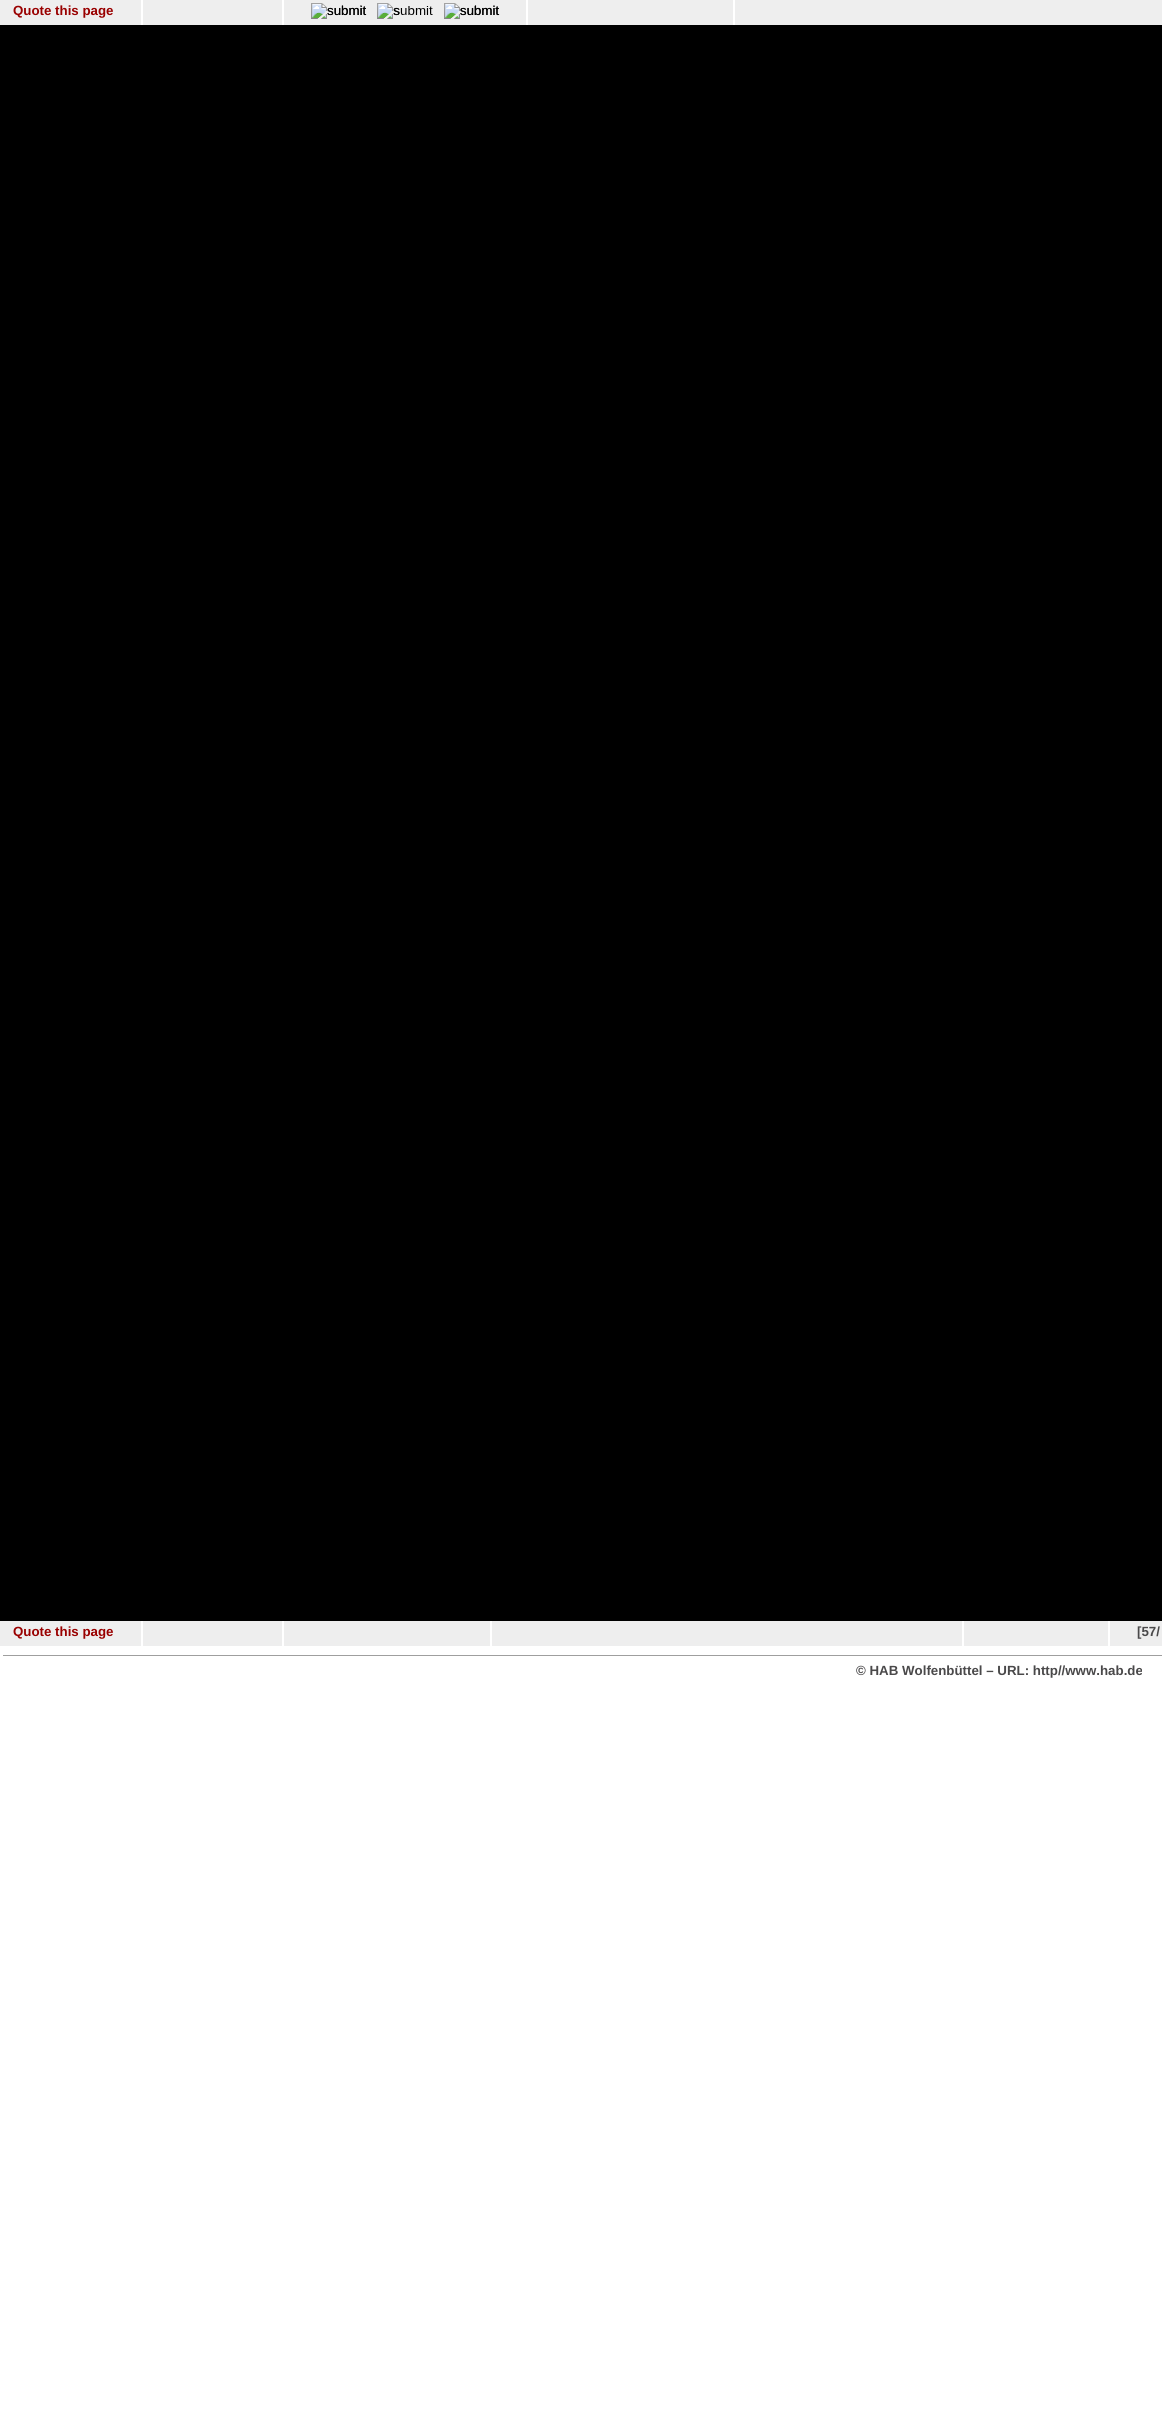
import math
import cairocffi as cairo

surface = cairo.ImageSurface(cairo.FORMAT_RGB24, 1162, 2416)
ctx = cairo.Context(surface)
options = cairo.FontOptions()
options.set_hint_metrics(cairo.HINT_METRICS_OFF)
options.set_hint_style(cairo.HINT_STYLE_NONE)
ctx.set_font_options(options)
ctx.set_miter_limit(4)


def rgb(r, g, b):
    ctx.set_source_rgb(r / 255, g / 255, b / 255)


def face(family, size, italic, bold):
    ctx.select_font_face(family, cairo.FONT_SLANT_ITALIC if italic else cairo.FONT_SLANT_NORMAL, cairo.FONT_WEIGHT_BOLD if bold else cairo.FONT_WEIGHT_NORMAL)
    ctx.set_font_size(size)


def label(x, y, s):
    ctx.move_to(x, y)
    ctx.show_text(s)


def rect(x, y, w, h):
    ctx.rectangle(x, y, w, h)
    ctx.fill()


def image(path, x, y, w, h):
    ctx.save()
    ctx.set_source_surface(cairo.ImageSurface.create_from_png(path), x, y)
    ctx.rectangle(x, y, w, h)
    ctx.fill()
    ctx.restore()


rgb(255, 255, 255)
ctx.paint()
rgb(238, 238, 238)
rect(0, 0, 1162, 25)
rgb(255, 255, 255)
rect(141, 0, 2, 25)
face('Liberation Sans', 13.3, 0, 1)
rgb(153, 0, 0)
label(13, 15, 'Quote this page')
rgb(255, 255, 255)
rect(282, 0, 2, 25)
rect(526, 0, 2, 25)
image('image0.png', 311, 3, 55, 16)
face('Liberation Sans', 13.3, 0, 0)
rgb(0, 0, 0)
label(327, 15, 'submit')
image('image1.png', 377, 3, 56, 16)
label(393, 15, 's')
image('image2.png', 444, 3, 55, 16)
label(460, 15, 'submit')
rgb(255, 255, 255)
rect(733, 0, 2, 25)
rgb(0, 0, 0)
rect(0, 25, 1162, 1596)
rgb(238, 238, 238)
rect(0, 1621, 1162, 25)
rgb(255, 255, 255)
rect(141, 1621, 2, 25)
face('Liberation Sans', 13.3, 0, 1)
rgb(153, 0, 0)
label(13, 1636, 'Quote this page')
rgb(255, 255, 255)
rect(282, 1621, 2, 25)
rect(490, 1621, 2, 25)
rect(962, 1621, 2, 25)
rect(1108, 1621, 2, 25)
rgb(74, 73, 74)
label(1137, 1636, '[57/')
rgb(159, 159, 159)
rect(3, 1655, 1159, 1)
rgb(74, 73, 74)
label(856, 1675, '© HAB Wolfenbüttel – URL: http//www.hab.de')
surface.write_to_png('render.png')
